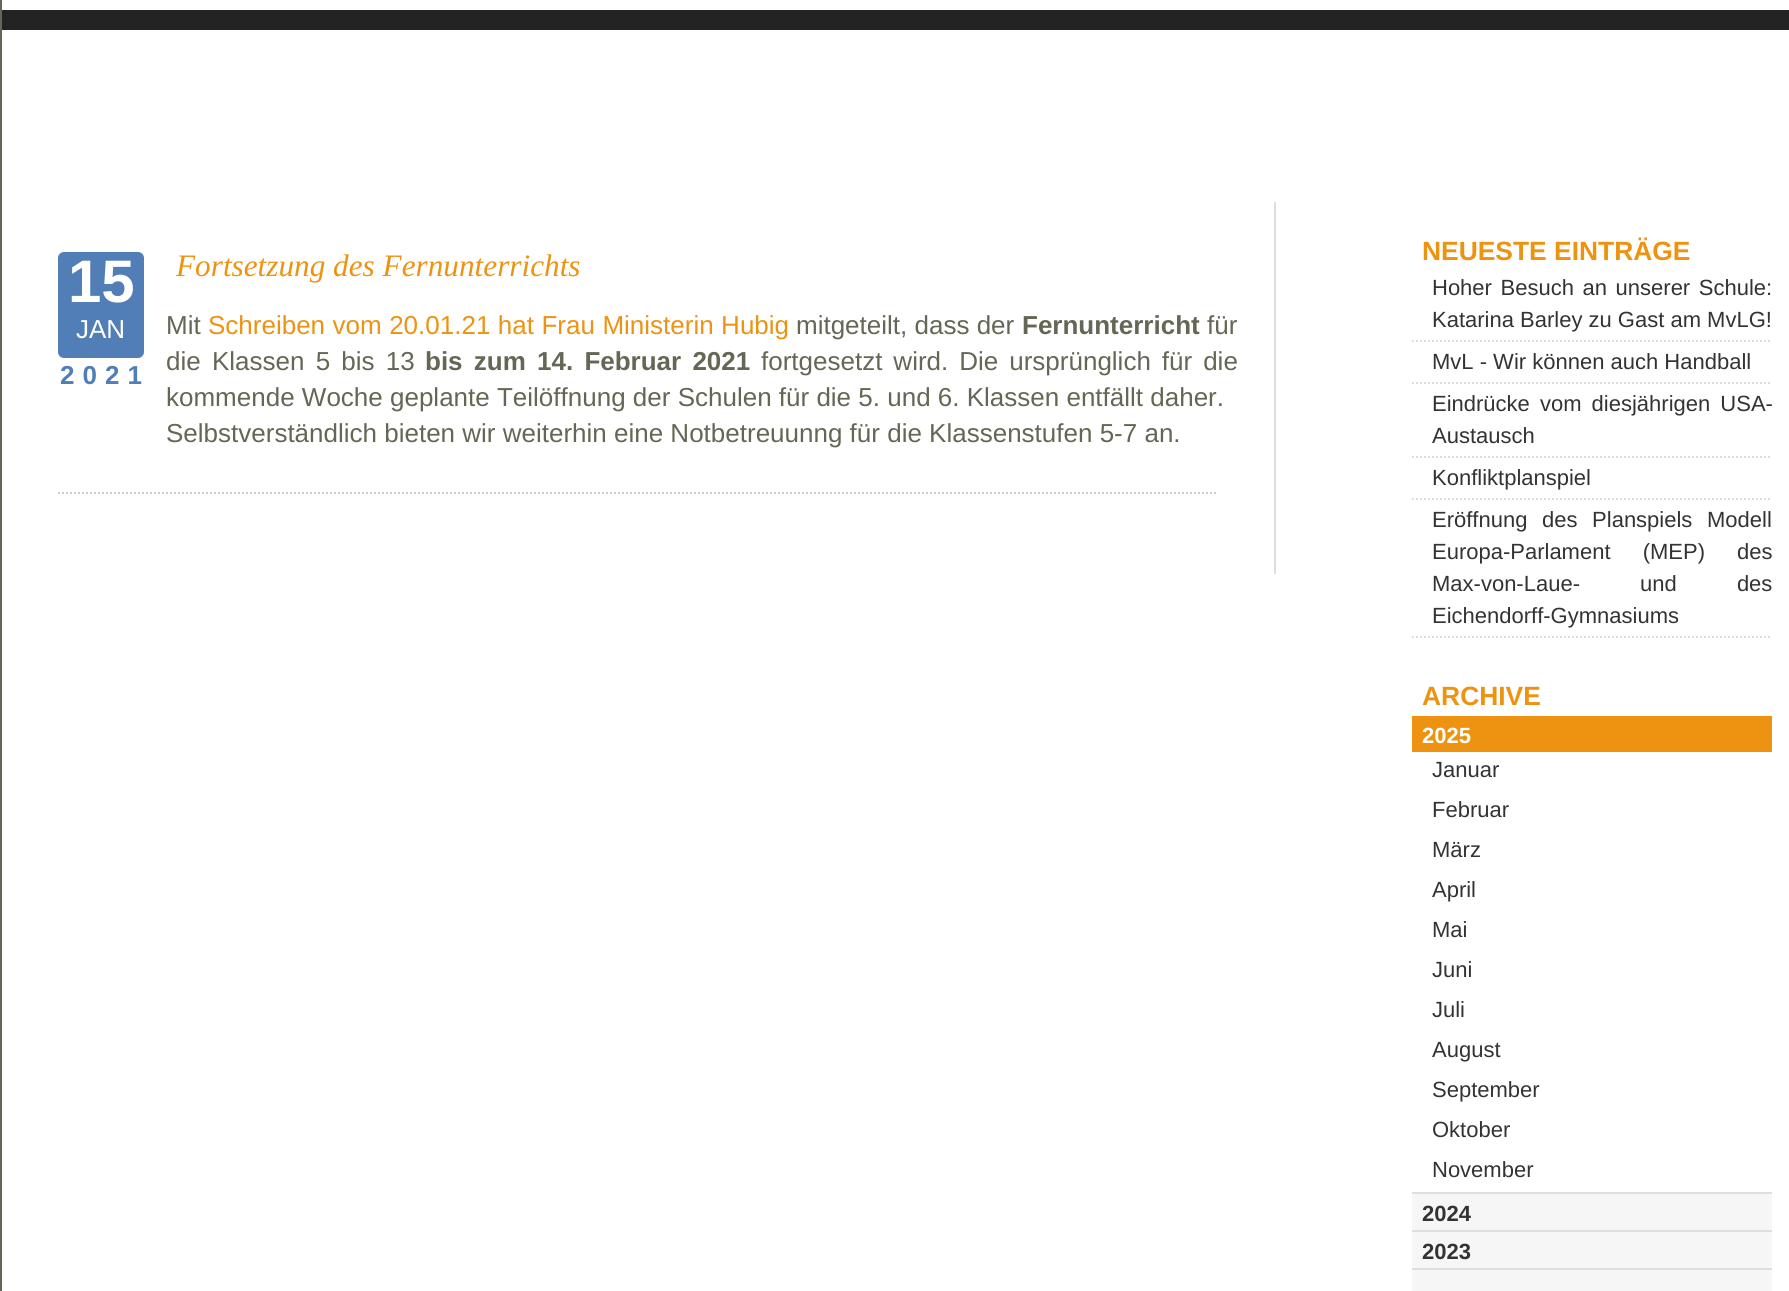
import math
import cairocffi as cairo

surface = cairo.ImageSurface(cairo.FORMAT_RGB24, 1789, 1291)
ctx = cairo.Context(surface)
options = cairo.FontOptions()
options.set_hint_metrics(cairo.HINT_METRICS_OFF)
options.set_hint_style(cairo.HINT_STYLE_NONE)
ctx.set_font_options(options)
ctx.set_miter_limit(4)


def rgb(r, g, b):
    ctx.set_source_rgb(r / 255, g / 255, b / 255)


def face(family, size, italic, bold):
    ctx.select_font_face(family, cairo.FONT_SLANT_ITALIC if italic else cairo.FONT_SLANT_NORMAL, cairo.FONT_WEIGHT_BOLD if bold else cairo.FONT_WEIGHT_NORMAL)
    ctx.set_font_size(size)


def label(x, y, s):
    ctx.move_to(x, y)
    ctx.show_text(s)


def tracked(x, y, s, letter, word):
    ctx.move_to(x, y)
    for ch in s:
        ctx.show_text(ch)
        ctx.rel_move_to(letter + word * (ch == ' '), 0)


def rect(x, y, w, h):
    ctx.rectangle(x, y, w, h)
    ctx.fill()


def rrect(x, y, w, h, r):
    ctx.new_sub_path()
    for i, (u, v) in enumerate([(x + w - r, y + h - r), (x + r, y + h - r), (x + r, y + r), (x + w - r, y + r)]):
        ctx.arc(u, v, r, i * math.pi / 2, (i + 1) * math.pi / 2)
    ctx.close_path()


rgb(255, 255, 255)
ctx.paint()
rgb(102, 102, 85)
rect(0, 0, 2, 1291)
rgb(35, 35, 35)
rect(2, 10, 1787, 20)
rgb(222, 222, 222)
rect(1274, 202, 2, 372)
rgb(81, 126, 183)
rrect(58, 252, 86, 106, 6)
ctx.fill()
face('Liberation Sans', 60, 0, 1)
rgb(255, 255, 255)
label(68, 302, '15')
face('Liberation Sans', 26, 0, 0)
label(76, 338, 'JAN')
face('Liberation Sans', 26, 0, 1)
rgb(81, 126, 183)
tracked(60, 384, '2021', 8, 0)
face('Liberation Serif', 31.25, 1, 0)
rgb(238, 147, 17)
label(176, 276, 'Fortsetzung des Fernunterrichts')
face('Liberation Sans', 26, 0, 0)
rgb(102, 102, 85)
label(166, 334, 'Mit')
rgb(238, 147, 17)
tracked(208, 334, 'Schreiben vom 20.01.21 hat Frau Ministerin Hubig', 0, 0.25)
rgb(102, 102, 85)
label(796, 334, 'mitgeteilt, dass der')
face('Liberation Sans', 26, 0, 1)
label(1022, 334, 'Fernunterricht')
face('Liberation Sans', 26, 0, 0)
label(1207, 334, 'für')
tracked(166, 370, 'die Klassen 5 bis 13', 0, 4)
face('Liberation Sans', 26, 0, 1)
tracked(425, 370, 'bis zum 14. Februar 2021', 0, 4)
face('Liberation Sans', 26, 0, 0)
tracked(761, 370, 'fortgesetzt wird. Die ursprünglich für die', 0, 3.75)
label(166, 406, 'kommende Woche geplante Teilöffnung der Schulen für die 5. und 6. Klassen entfällt daher.')
label(166, 442, 'Selbstverständlich bieten wir weiterhin eine Notbetreuunng für die Klassenstufen 5-7 an.')
ctx.new_path()
ctx.move_to(58, 493)
ctx.line_to(1218, 493)
rgb(204, 204, 204)
ctx.set_dash([2, 2])
ctx.stroke()
face('Liberation Sans', 26.4, 0, 1)
rgb(238, 147, 17)
label(1422, 260, 'NEUESTE EINTRÄGE')
ctx.new_path()
ctx.move_to(1412, 341)
ctx.line_to(1772, 341)
rgb(222, 222, 222)
ctx.stroke()
face('Liberation Sans', 22, 0, 0)
rgb(51, 51, 51)
tracked(1432, 295, 'Hoher Besuch an unserer Schule:', 0, 2.5)
label(1432, 327, 'Katarina Barley zu Gast am MvLG!')
ctx.new_path()
ctx.move_to(1412, 383)
ctx.line_to(1772, 383)
rgb(222, 222, 222)
ctx.stroke()
rgb(51, 51, 51)
label(1432, 369, 'MvL - Wir können auch Handball')
ctx.new_path()
ctx.move_to(1412, 457)
ctx.line_to(1772, 457)
rgb(222, 222, 222)
ctx.stroke()
rgb(51, 51, 51)
tracked(1432, 411, 'Eindrücke vom diesjährigen USA-', 0, 4)
label(1432, 443, 'Austausch')
ctx.new_path()
ctx.move_to(1412, 499)
ctx.line_to(1772, 499)
rgb(222, 222, 222)
ctx.stroke()
rgb(51, 51, 51)
label(1432, 485, 'Konfliktplanspiel')
ctx.new_path()
ctx.move_to(1412, 637)
ctx.line_to(1772, 637)
rgb(222, 222, 222)
ctx.stroke()
rgb(51, 51, 51)
tracked(1432, 527, 'Eröffnung des Planspiels Modell', 0, 8.5)
tracked(1432, 559, 'Europa-Parlament (MEP) des', 0, 26)
tracked(1432, 591, 'Max-von-Laue- und des', 0, 54)
label(1432, 623, 'Eichendorff-Gymnasiums')
face('Liberation Sans', 26.4, 0, 1)
rgb(238, 147, 17)
label(1422, 705, 'ARCHIVE')
rect(1412, 716, 360, 36)
face('Liberation Sans', 22, 0, 1)
rgb(255, 255, 255)
label(1422, 743, '2025')
face('Liberation Sans', 22, 0, 0)
rgb(51, 51, 51)
label(1432, 777, 'Januar')
label(1432, 817, 'Februar')
label(1432, 857, 'März')
label(1432, 897, 'April')
label(1432, 937, 'Mai')
label(1432, 977, 'Juni')
label(1432, 1017, 'Juli')
label(1432, 1057, 'August')
label(1432, 1097, 'September')
label(1432, 1137, 'Oktober')
label(1432, 1177, 'November')
rgb(246, 246, 246)
rect(1412, 1194, 360, 36)
rgb(222, 222, 222)
rect(1412, 1192, 360, 2)
face('Liberation Sans', 22, 0, 1)
rgb(51, 51, 51)
label(1422, 1221, '2024')
rgb(246, 246, 246)
rect(1412, 1232, 360, 36)
rgb(222, 222, 222)
rect(1412, 1230, 360, 2)
rgb(51, 51, 51)
label(1422, 1259, '2023')
rgb(246, 246, 246)
rect(1412, 1270, 360, 21)
rgb(222, 222, 222)
rect(1412, 1268, 360, 2)
surface.write_to_png('render.png')
